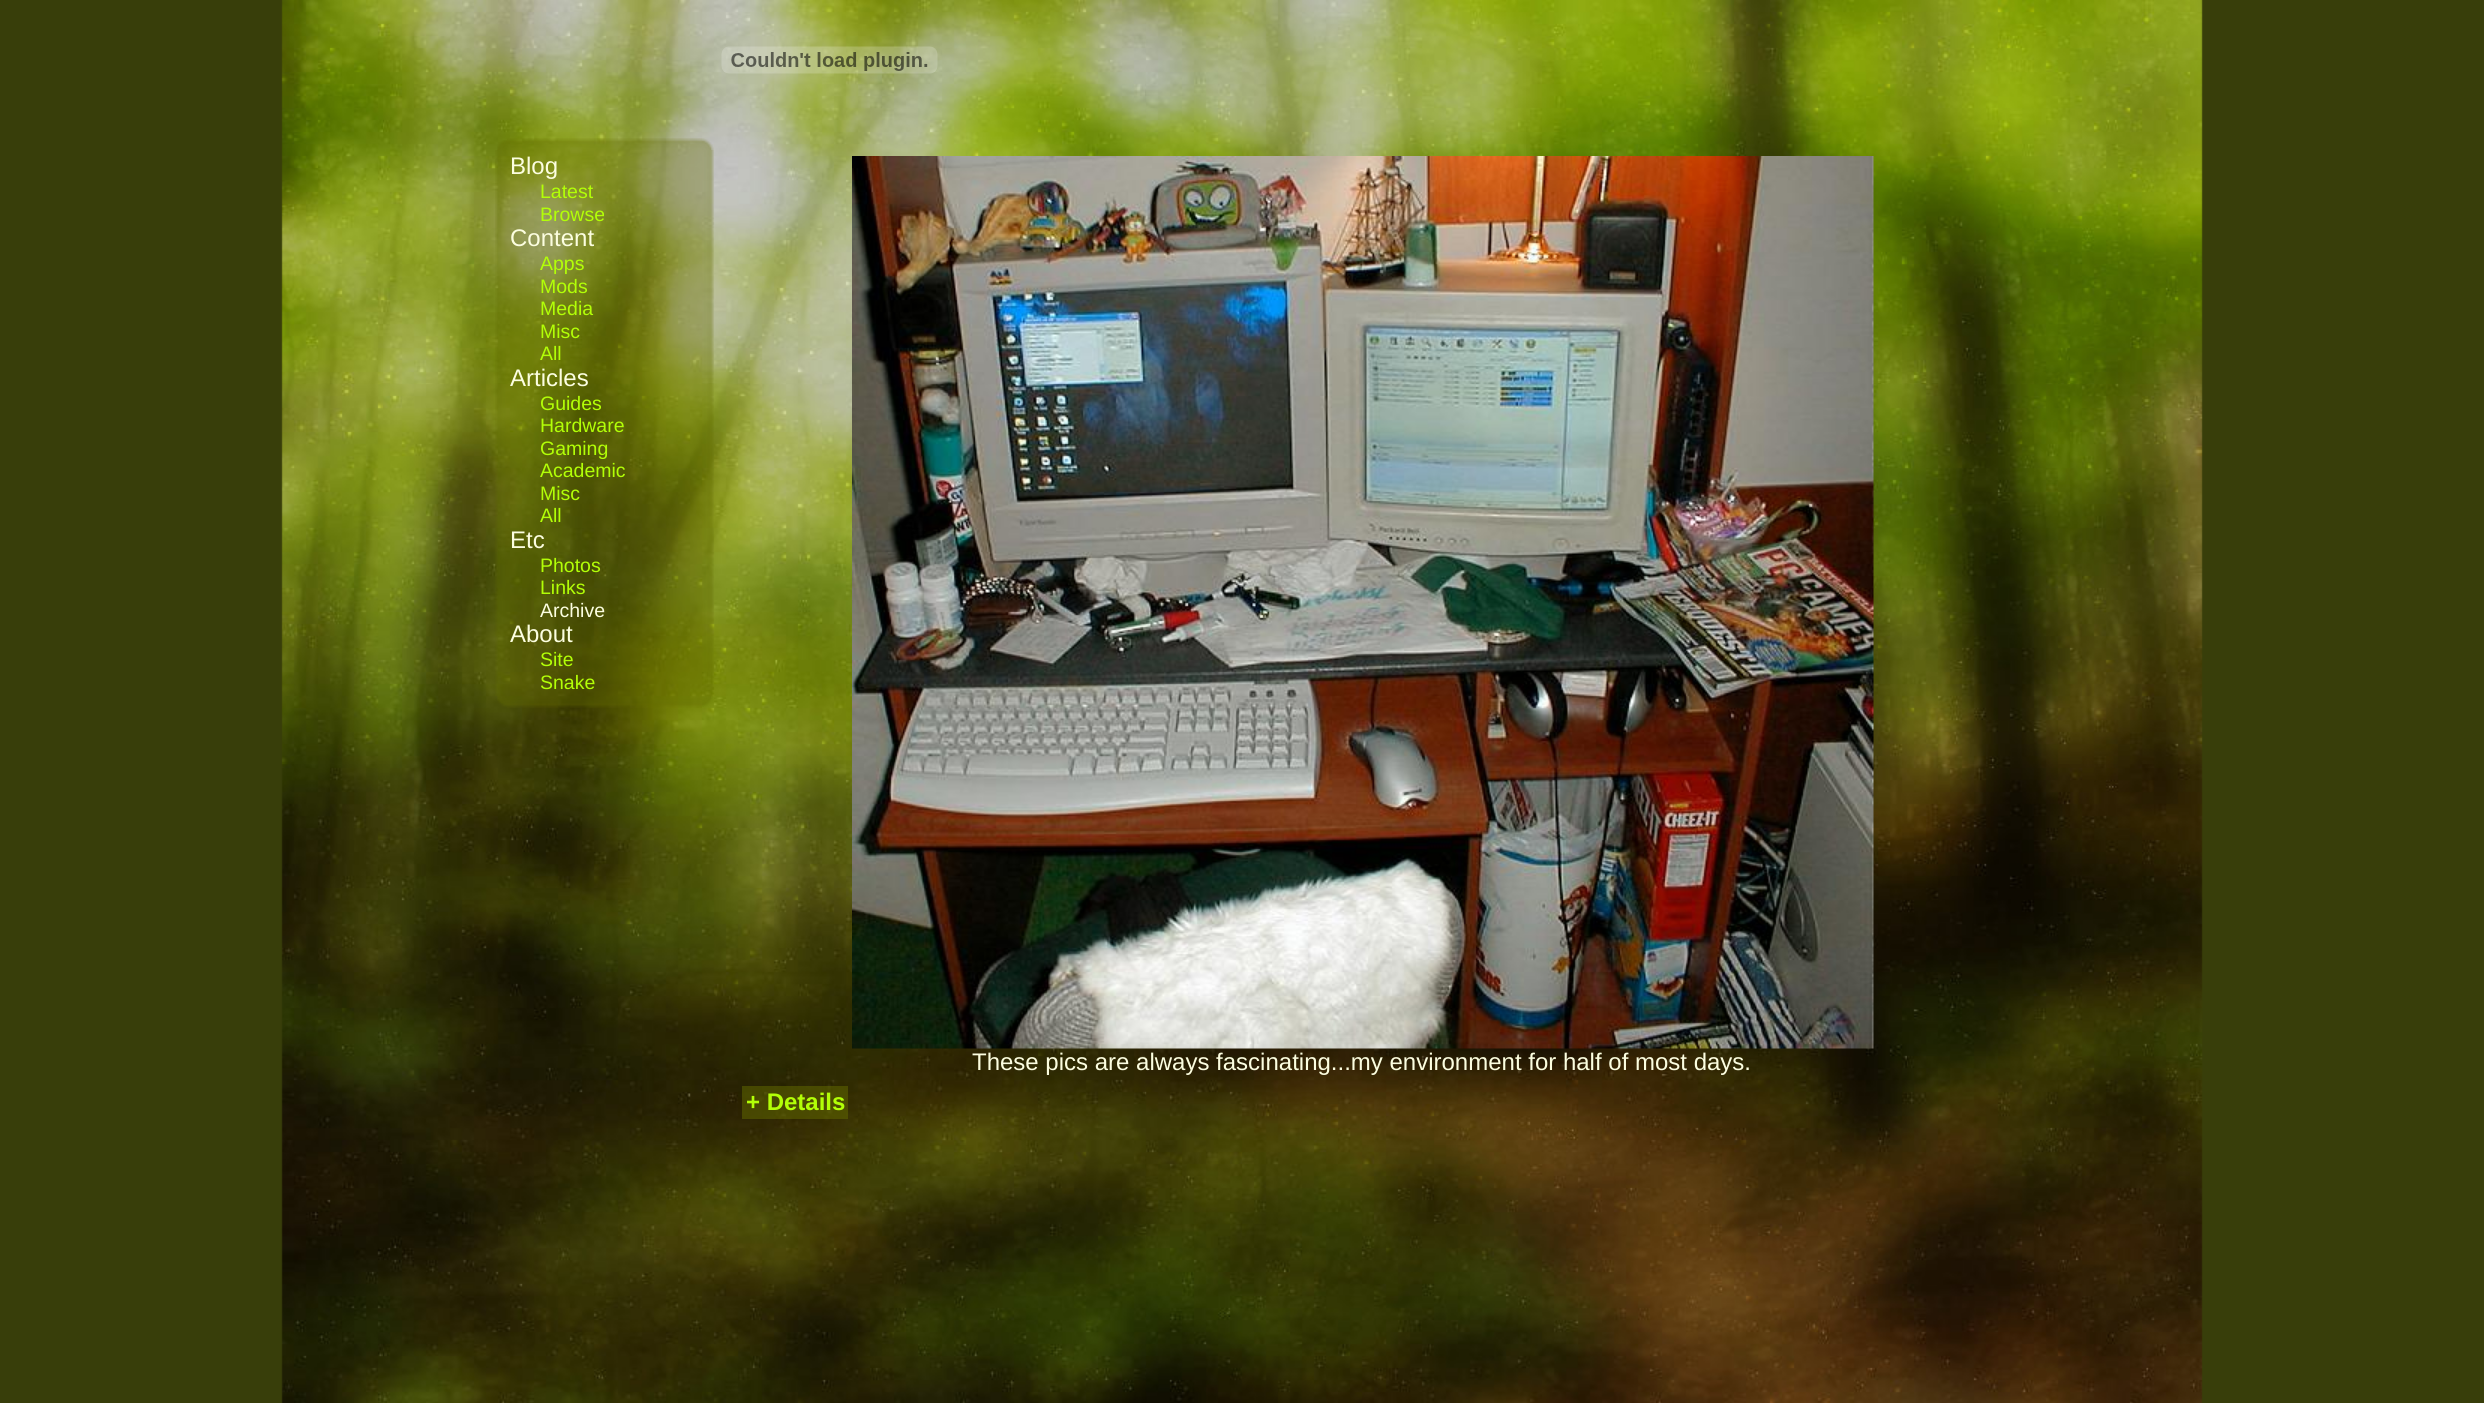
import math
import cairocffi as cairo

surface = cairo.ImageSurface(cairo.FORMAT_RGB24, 2484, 1403)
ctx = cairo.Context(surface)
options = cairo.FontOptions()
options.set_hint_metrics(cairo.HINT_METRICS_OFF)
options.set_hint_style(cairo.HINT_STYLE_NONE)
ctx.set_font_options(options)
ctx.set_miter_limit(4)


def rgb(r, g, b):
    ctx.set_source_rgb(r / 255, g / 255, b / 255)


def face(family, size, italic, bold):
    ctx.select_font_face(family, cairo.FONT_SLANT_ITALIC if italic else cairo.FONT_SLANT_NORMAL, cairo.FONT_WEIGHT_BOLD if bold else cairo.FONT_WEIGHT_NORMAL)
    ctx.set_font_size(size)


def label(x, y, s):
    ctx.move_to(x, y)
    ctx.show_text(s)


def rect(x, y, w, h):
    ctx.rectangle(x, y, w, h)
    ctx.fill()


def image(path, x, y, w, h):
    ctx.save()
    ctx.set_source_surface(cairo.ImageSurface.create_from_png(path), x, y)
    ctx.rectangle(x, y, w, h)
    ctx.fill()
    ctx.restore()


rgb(56, 62, 10)
ctx.paint()
image('image0.png', 281, 0, 1922, 1403)
image('image1.png', 721, 46, 217, 28)
image('image2.png', 497, 140, 10, 10)
image('image3.png', 507, 138, 195, 12)
image('image4.png', 702, 138, 12, 12)
image('image5.png', 495, 150, 12, 546)
ctx.set_source_rgba(0.392, 0.416, 0, 0.35)
rect(507, 150, 195, 546)
face('Liberation Sans', 24, 0, 0)
rgb(252, 254, 224)
label(510, 174, 'Blog')
face('Liberation Sans', 19.5, 0, 0)
rgb(178, 255, 7)
label(540, 198, 'Latest')
label(540, 221, 'Browse')
face('Liberation Sans', 24, 0, 0)
rgb(252, 254, 224)
label(510, 246, 'Content')
face('Liberation Sans', 19.5, 0, 0)
rgb(178, 255, 7)
label(540, 270, 'Apps')
label(540, 293, 'Mods')
label(540, 315, 'Media')
label(540, 338, 'Misc')
label(540, 360, 'All')
face('Liberation Sans', 24, 0, 0)
rgb(252, 254, 224)
label(510, 386, 'Articles')
face('Liberation Sans', 19.5, 0, 0)
rgb(178, 255, 7)
label(540, 410, 'Guides')
label(540, 432, 'Hardware')
label(540, 455, 'Gaming')
label(540, 477, 'Academic')
label(540, 500, 'Misc')
label(540, 522, 'All')
face('Liberation Sans', 24, 0, 0)
rgb(252, 254, 224)
label(510, 548, 'Etc')
face('Liberation Sans', 19.5, 0, 0)
rgb(178, 255, 7)
label(540, 572, 'Photos')
label(540, 594, 'Links')
rgb(252, 254, 224)
label(540, 617, 'Archive')
face('Liberation Sans', 24, 0, 0)
label(510, 642, 'About')
face('Liberation Sans', 19.5, 0, 0)
rgb(178, 255, 7)
label(540, 666, 'Site')
label(540, 689, 'Snake')
image('image6.png', 702, 150, 12, 546)
image('image7.png', 497, 696, 10, 11)
image('image8.png', 507, 696, 195, 12)
image('image9.png', 702, 696, 11, 11)
image('image10.png', 852, 156, 1022, 893)
face('Liberation Sans', 24, 0, 0)
rgb(252, 254, 224)
label(972, 1070, 'These pics are always fascinating...my environment for half of most days.')
ctx.set_source_rgba(0.392, 0.424, 0, 0.5)
rect(742, 1086, 106, 33)
face('Liberation Sans', 24, 0, 1)
rgb(178, 255, 7)
label(746, 1110, '+ Details')
surface.write_to_png('render.png')
